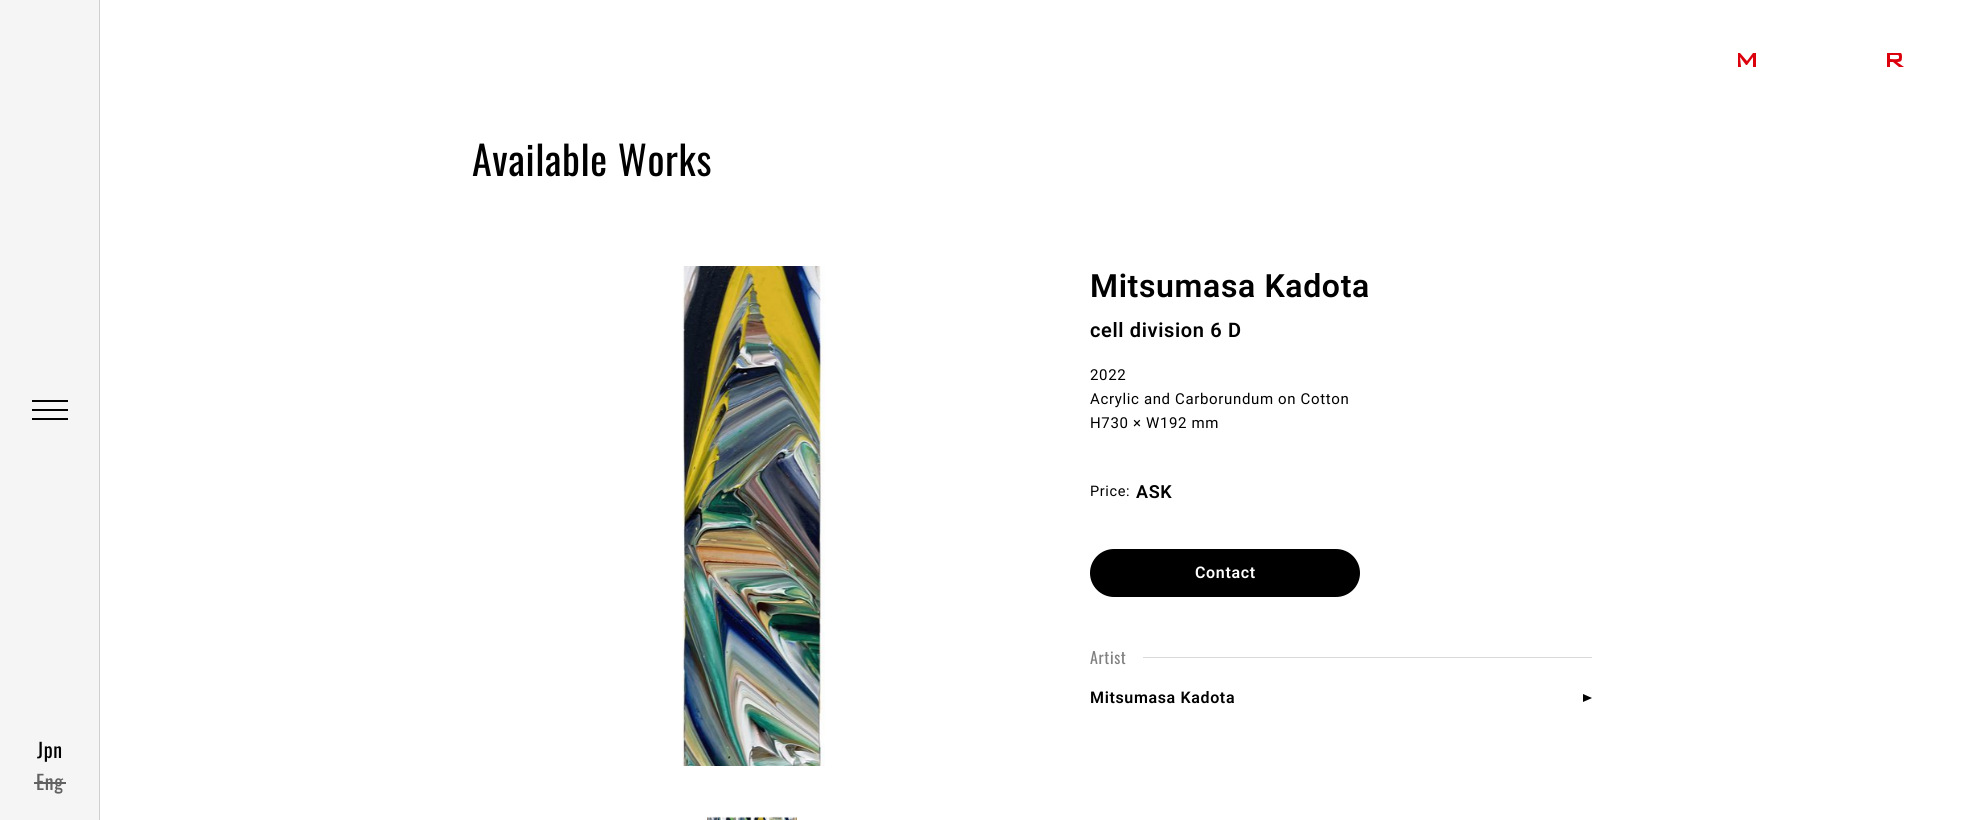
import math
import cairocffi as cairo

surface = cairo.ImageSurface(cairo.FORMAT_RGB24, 1963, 820)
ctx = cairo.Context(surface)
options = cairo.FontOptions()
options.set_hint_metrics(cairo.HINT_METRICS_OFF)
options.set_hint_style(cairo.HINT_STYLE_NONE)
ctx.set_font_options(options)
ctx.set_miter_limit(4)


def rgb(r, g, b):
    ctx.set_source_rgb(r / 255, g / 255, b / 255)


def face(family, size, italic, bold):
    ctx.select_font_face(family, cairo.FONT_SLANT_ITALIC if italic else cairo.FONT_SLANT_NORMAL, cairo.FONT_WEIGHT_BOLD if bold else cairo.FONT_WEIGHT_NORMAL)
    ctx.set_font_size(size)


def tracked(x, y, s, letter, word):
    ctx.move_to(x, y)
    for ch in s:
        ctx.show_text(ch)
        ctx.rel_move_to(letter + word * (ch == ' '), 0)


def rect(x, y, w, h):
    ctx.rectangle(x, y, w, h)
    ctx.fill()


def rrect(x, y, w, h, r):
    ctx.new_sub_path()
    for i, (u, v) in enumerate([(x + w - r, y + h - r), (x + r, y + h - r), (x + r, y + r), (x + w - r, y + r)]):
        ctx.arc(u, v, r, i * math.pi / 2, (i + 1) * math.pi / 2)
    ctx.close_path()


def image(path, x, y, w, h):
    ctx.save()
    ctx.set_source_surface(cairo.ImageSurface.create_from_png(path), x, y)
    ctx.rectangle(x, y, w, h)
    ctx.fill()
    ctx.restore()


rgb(255, 255, 255)
ctx.paint()
face('Oswald', 40, 0, 0)
rgb(0, 0, 0)
tracked(472, 176, 'Available Works', 0.65, 0)
image('image0.png', 682, 266, 143, 500)
image('image1.png', 707, 798, 90, 22)
face('Roboto SemiBold', 32, 0, 0)
tracked(1090, 297, 'Mitsumasa Kadota', 0.65, 0)
face('Roboto SemiBold', 20, 0, 0)
tracked(1090, 337, 'cell division 6 D', 0.65, 0)
face('Roboto', 15, 0, 0)
tracked(1090, 380, '2022', 0.65, 0)
tracked(1090, 404, 'Acrylic and Carborundum on Cotton', 0.65, 0)
tracked(1090, 428, 'H730 × W192 mm', 0.65, 0)
face('Roboto', 14.5, 0, 0)
tracked(1090, 496, 'Price:', 0.65, 0)
face('Roboto SemiBold', 18, 0, 0)
tracked(1136, 498, 'ASK', 0.65, 0)
rrect(1090, 549, 270, 48, 24)
ctx.fill()
face('Roboto SemiBold', 16, 0, 0)
rgb(255, 255, 255)
tracked(1195, 578, 'Contact', 0.65, 0)
face('Oswald', 16, 0, 0)
rgb(128, 128, 128)
tracked(1090, 664, 'Artist', 0.65, 0)
rgb(217, 217, 217)
rect(1143, 657, 449, 1)
face('Roboto SemiBold', 16, 0, 0)
rgb(0, 0, 0)
tracked(1090, 703, 'Mitsumasa Kadota', 0.65, 0)
ctx.new_path()
ctx.move_to(1592, 698)
ctx.line_to(1583, 702)
ctx.line_to(1583, 694)
ctx.close_path()
ctx.fill()
rgb(220, 0, 12)
ctx.new_path()
ctx.move_to(1887, 67)
ctx.line_to(1887, 53)
ctx.line_to(1901, 53)
ctx.curve_to(1902, 54, 1902, 56, 1902, 57)
ctx.curve_to(1902, 61, 1901, 62, 1897, 62)
ctx.line_to(1904, 67)
ctx.line_to(1899, 67)
ctx.line_to(1893, 62)
ctx.line_to(1890, 62)
ctx.line_to(1890, 67)
ctx.line_to(1887, 67)
ctx.move_to(1898, 55)
ctx.line_to(1890, 55)
ctx.line_to(1890, 59)
ctx.curve_to(1891, 59, 1899, 60, 1899, 58)
ctx.line_to(1899, 56)
ctx.close_path()
ctx.move_to(1738, 67)
ctx.line_to(1738, 53)
ctx.line_to(1740, 53)
ctx.line_to(1747, 61)
ctx.line_to(1753, 53)
ctx.line_to(1756, 53)
ctx.line_to(1756, 67)
ctx.line_to(1753, 67)
ctx.line_to(1753, 57)
ctx.line_to(1747, 65)
ctx.line_to(1746, 65)
ctx.line_to(1740, 57)
ctx.line_to(1741, 67)
ctx.close_path()
ctx.fill()
rgb(245, 245, 245)
rect(0, 0, 99, 820)
rgb(0, 0, 0)
rect(32, 400, 36, 2)
rect(32, 409, 36, 2)
rect(32, 418, 36, 2)
rgb(208, 208, 208)
rect(99, 0, 1, 820)
face('Oswald', 20, 0, 0)
rgb(0, 0, 0)
tracked(37, 758, 'Jpn', 0.65, 0)
rgb(98, 98, 98)
tracked(36, 790, 'Eng', 0.65, 0)
rect(34, 782, 32, 2)
surface.write_to_png('render.png')
